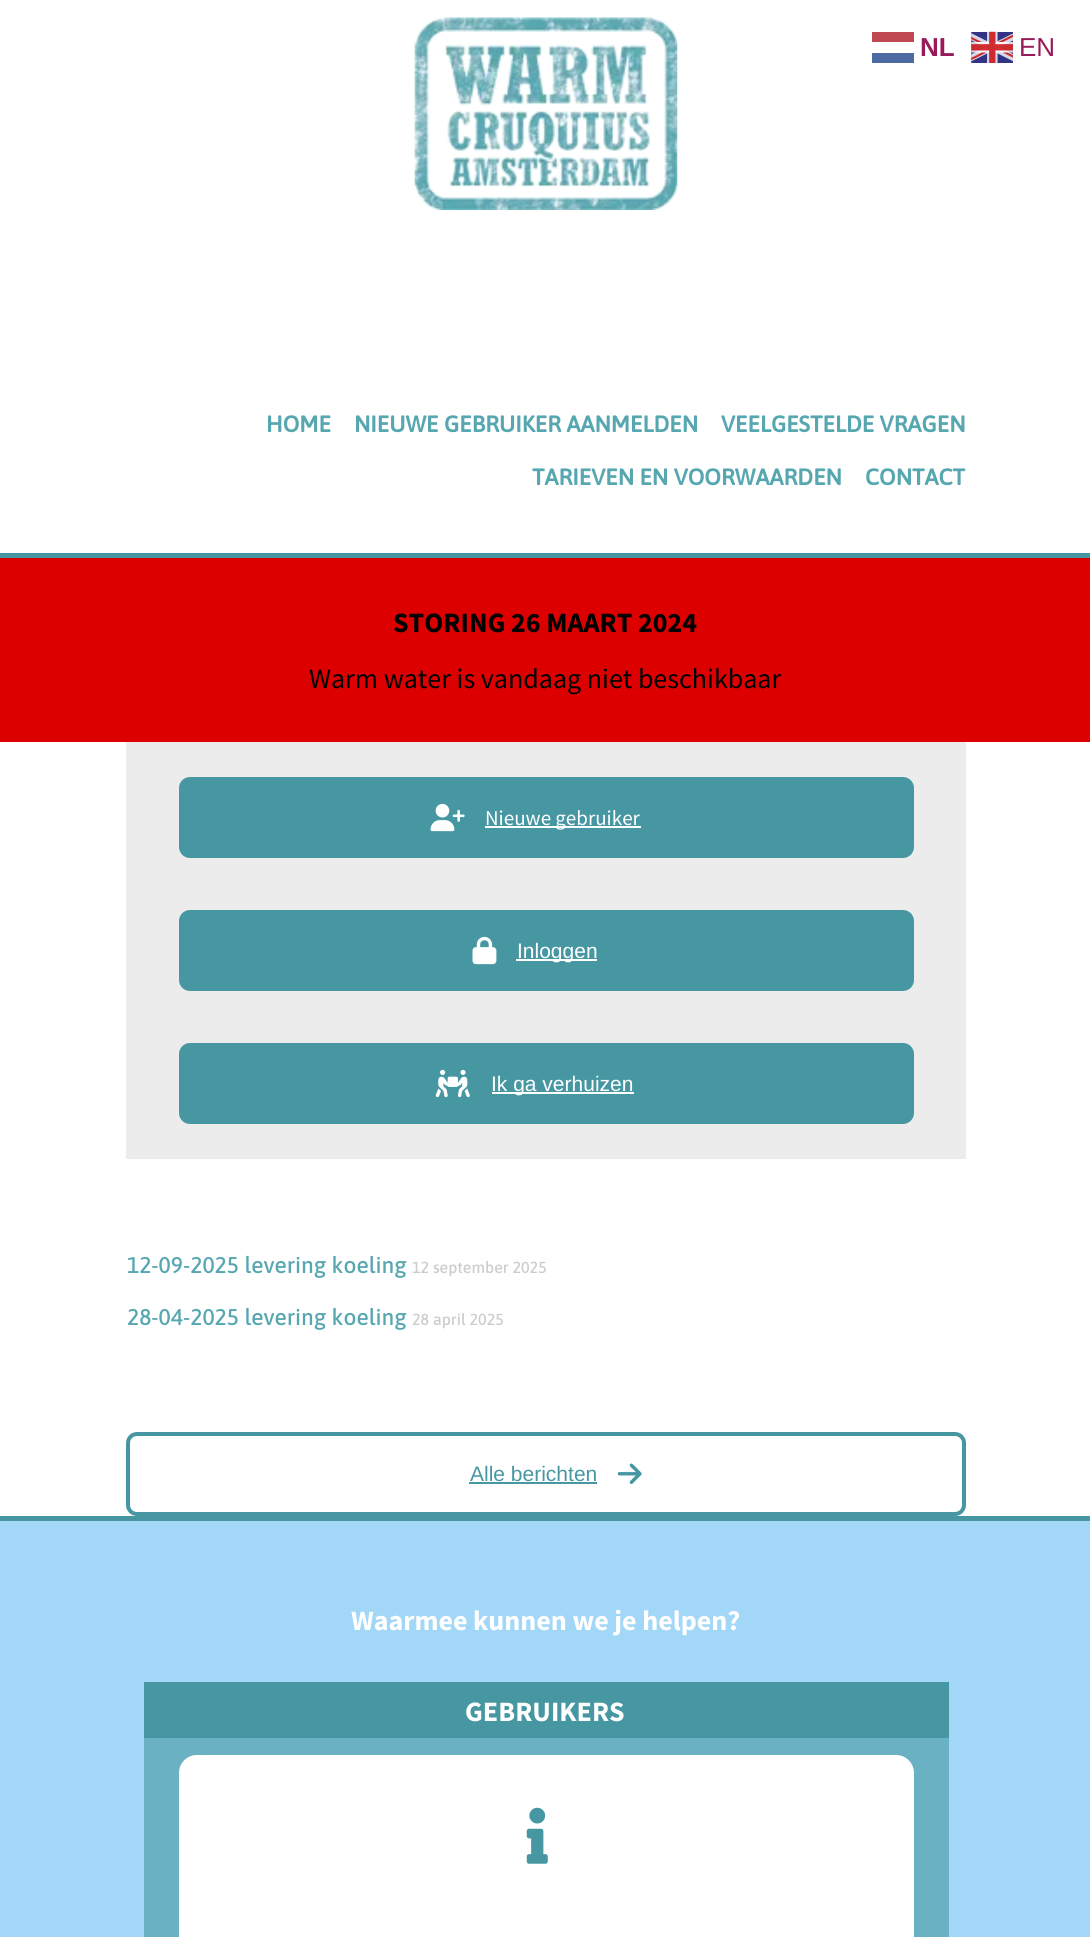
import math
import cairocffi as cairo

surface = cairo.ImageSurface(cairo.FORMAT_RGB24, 1090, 1937)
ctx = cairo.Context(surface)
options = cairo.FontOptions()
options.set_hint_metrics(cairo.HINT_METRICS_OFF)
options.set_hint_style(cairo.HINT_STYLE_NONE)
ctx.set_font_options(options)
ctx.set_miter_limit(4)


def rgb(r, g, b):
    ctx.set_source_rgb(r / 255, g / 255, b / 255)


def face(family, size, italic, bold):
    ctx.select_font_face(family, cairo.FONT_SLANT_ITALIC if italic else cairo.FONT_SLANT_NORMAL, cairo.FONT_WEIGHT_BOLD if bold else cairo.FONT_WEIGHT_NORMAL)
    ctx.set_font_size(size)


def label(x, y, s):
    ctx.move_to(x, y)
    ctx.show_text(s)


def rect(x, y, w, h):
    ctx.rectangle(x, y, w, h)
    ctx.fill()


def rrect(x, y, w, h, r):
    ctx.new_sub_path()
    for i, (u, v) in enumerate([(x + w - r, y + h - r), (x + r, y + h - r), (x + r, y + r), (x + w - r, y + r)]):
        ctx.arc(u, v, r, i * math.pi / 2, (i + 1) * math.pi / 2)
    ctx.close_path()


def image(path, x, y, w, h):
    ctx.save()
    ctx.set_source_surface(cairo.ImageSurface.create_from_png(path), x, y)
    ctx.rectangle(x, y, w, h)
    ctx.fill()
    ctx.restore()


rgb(255, 255, 255)
ctx.paint()
face('Liberation Sans', 26, 0, 1)
rgb(153, 26, 89)
label(920, 56, 'NL')
rgb(77, 107, 162)
rect(872, 53, 42, 10)
rgb(190, 73, 83)
rect(872, 32, 42, 10)
image('image0.png', 971, 31, 42, 32)
face('Liberation Sans', 26, 0, 0)
rgb(153, 26, 89)
label(1019, 56, 'EN')
rgb(70, 151, 162)
rect(0, 553, 1090, 5)
image('image1.png', 414, 17, 264, 193)
face('Asap', 22.75, 0, 1)
rgb(87, 167, 177)
label(266, 432, 'HOME')
label(354, 432, 'NIEUWE GEBRUIKER AANMELDEN')
label(721, 432, 'VEELGESTELDE VRAGEN')
label(532, 485, 'TARIEVEN EN VOORWAARDEN')
label(865, 485, 'CONTACT')
rgb(221, 0, 0)
rect(0, 558, 1090, 184)
face('Source Sans Pro', 28, 0, 1)
rgb(0, 0, 0)
label(393, 632, 'STORING 26 MAART 2024')
face('Source Sans Pro', 28, 0, 0)
label(309, 688, 'Warm water is vandaag niet beschikbaar')
rgb(70, 151, 162)
rect(0, 1516, 1090, 5)
rgb(236, 236, 236)
rect(126, 742, 840, 417)
rgb(70, 151, 162)
rrect(180, 778, 733, 79, 10)
ctx.fill_preserve()
ctx.stroke()
image('image2.png', 430, 803, 35, 29)
rgb(255, 255, 255)
rect(485, 826, 156, 2)
face('Source Sans Pro', 21, 0, 0)
label(485, 825, 'Nieuwe gebruiker')
rgb(70, 151, 162)
rrect(180, 911, 733, 79, 10)
ctx.fill_preserve()
ctx.stroke()
image('image3.png', 472, 936, 25, 29)
rgb(255, 255, 255)
rect(516, 959, 81, 2)
face('Liberation Sans', 21, 0, 0)
label(517, 958, 'Inloggen')
rgb(70, 151, 162)
rrect(180, 1044, 733, 79, 10)
ctx.fill_preserve()
ctx.stroke()
image('image4.png', 435, 1069, 35, 29)
rgb(255, 255, 255)
rect(492, 1092, 142, 2)
label(491, 1091, 'Ik ga verhuizen')
face('Asap Medium', 22.75, 0, 0)
rgb(87, 167, 177)
label(127, 1273, '12-09-2025 levering koeling')
face('Asap Medium', 16, 0, 0)
rgb(204, 204, 204)
label(412, 1273, '12 september 2025')
face('Asap Medium', 22.75, 0, 0)
rgb(87, 167, 177)
label(127, 1325, '28-04-2025 levering koeling')
face('Asap Medium', 16, 0, 0)
rgb(204, 204, 204)
label(412, 1325, '28 april 2025')
rrect(128, 1434, 836, 80, 9)
rgb(70, 151, 162)
ctx.set_line_width(4)
ctx.stroke()
face('Liberation Sans', 21, 0, 0)
label(470, 1481, 'Alle berichten')
rect(469, 1482, 128, 2)
image('image5.png', 617, 1463, 25, 21)
rgb(163, 215, 248)
rect(0, 1521, 1090, 416)
rgb(107, 177, 196)
rect(144, 1738, 805, 199)
face('Source Sans Pro', 28, 0, 1)
rgb(255, 255, 255)
label(351, 1630, 'Waarmee kunnen we je helpen?')
rgb(70, 151, 162)
rect(144, 1682, 805, 56)
rgb(255, 255, 255)
label(465, 1721, 'GEBRUIKERS')
rrect(179, 1755, 735, 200, 18)
ctx.fill()
image('image6.png', 526, 1807, 22, 57)
surface.write_to_png('render.png')
